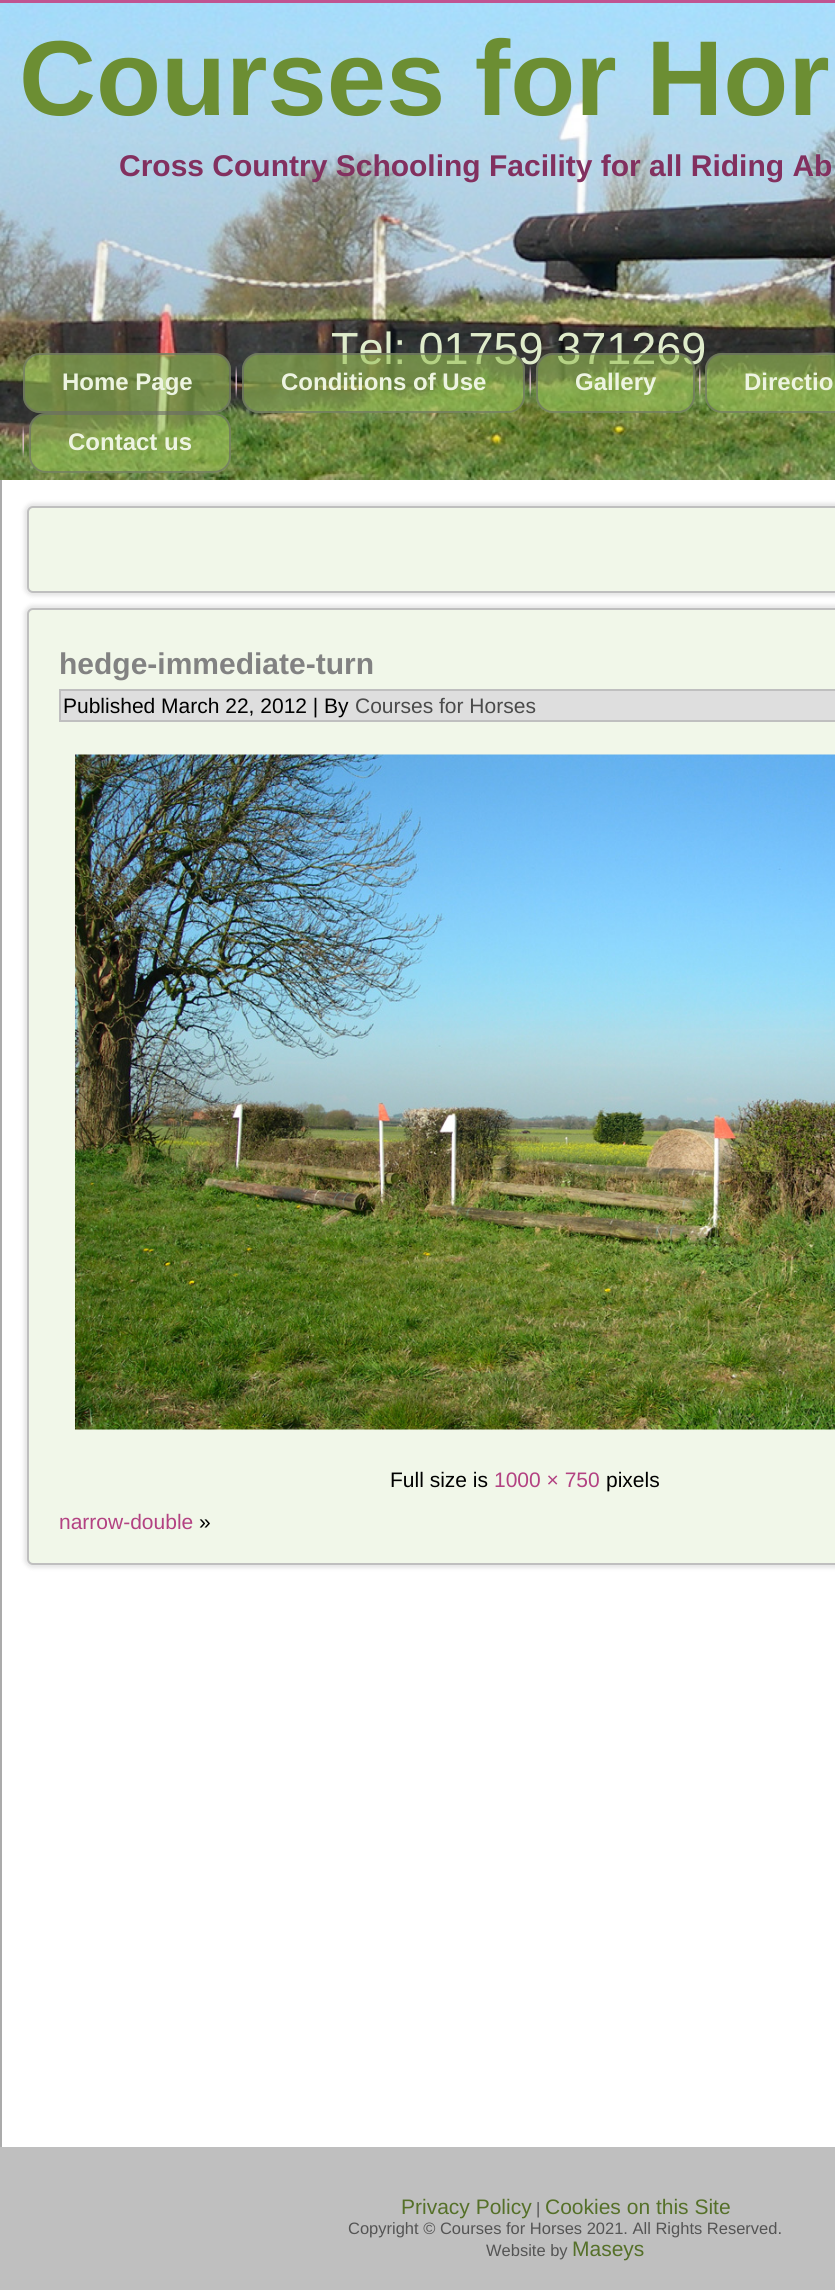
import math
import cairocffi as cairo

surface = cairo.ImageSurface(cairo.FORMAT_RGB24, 835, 2290)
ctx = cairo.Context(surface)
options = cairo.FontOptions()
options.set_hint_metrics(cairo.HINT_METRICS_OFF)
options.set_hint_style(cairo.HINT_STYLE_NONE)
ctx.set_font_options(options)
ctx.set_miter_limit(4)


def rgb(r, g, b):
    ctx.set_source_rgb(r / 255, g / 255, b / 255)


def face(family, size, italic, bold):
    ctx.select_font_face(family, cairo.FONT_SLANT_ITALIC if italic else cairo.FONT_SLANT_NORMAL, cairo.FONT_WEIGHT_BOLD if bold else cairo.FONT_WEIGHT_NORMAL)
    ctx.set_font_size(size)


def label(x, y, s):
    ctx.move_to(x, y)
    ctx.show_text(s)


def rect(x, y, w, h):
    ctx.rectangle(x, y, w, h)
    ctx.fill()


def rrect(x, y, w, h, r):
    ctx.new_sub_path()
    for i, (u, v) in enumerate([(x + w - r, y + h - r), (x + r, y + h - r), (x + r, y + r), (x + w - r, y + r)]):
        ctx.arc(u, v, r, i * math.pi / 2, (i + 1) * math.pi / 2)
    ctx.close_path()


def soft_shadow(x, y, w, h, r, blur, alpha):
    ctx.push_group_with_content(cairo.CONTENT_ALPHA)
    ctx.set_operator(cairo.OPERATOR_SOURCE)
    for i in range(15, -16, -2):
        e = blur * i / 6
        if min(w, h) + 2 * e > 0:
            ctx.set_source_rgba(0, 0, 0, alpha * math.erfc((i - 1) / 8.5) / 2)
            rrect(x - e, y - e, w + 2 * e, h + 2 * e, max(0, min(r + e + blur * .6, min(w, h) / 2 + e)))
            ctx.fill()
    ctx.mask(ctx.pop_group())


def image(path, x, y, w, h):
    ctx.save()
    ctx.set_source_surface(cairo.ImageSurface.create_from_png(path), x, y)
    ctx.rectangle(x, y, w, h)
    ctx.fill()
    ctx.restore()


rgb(255, 255, 255)
ctx.paint()
image('image0.png', 0, 3, 835, 477)
rgb(192, 84, 145)
rect(0, 0, 835, 3)
face('Liberation Sans', 106.5, 0, 1)
rgb(108, 142, 51)
label(19, 115, 'Courses for Hor')
face('Liberation Sans', 30, 0, 1)
rgb(130, 48, 95)
label(119, 176, 'Cross Country Schooling Facility for all Riding Ab')
face('Liberation Sans', 45, 0, 0)
rgb(223, 236, 203)
label(331, 364, 'Tel: 01759 371269')
ctx.set_source_rgba(0.6, 0.761, 0.337, 0.6)
rrect(23, 353, 208, 60, 17)
ctx.fill()
rrect(24, 354, 206, 58, 16)
ctx.set_source_rgba(0.412, 0.412, 0.412, 0.6)
ctx.stroke()
face('Liberation Sans', 24, 0, 1)
rgb(237, 244, 225)
label(62, 390, 'Home Page')
image('image1.png', 235, 366, 2, 32)
ctx.set_source_rgba(0.6, 0.761, 0.337, 0.6)
rrect(242, 353, 283, 60, 17)
ctx.fill()
rrect(243, 354, 281, 58, 16)
ctx.set_source_rgba(0.412, 0.412, 0.412, 0.6)
ctx.stroke()
rgb(237, 244, 225)
label(281, 390, 'Conditions of Use')
image('image2.png', 529, 366, 2, 32)
ctx.set_source_rgba(0.6, 0.761, 0.337, 0.6)
rrect(536, 353, 159, 60, 17)
ctx.fill()
rrect(537, 354, 157, 58, 16)
ctx.set_source_rgba(0.412, 0.412, 0.412, 0.6)
ctx.stroke()
rgb(237, 244, 225)
label(575, 390, 'Gallery')
image('image3.png', 699, 366, 2, 32)
ctx.set_source_rgba(0.6, 0.761, 0.337, 0.6)
rrect(705, 353, 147, 60, 17)
ctx.fill()
rrect(706, 354, 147, 58, 16)
ctx.set_source_rgba(0.412, 0.412, 0.412, 0.6)
ctx.stroke()
rgb(237, 244, 225)
label(744, 390, 'Directio')
image('image4.png', 22, 426, 2, 32)
ctx.set_source_rgba(0.6, 0.761, 0.337, 0.6)
rrect(29, 413, 202, 60, 17)
ctx.fill()
rrect(30, 414, 200, 58, 16)
ctx.set_source_rgba(0.412, 0.412, 0.412, 0.6)
ctx.stroke()
rgb(237, 244, 225)
label(68, 450, 'Contact us')
rgb(171, 171, 171)
rect(0, 480, 2, 1667)
rgb(0, 0, 0)
soft_shadow(24, 503, 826, 93, 9, 2, 0.1)
rgb(241, 247, 233)
rrect(28, 507, 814, 85, 5)
ctx.fill_preserve()
rgb(191, 191, 191)
ctx.stroke()
rgb(0, 0, 0)
soft_shadow(24, 605, 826, 963, 9, 2, 0.1)
rgb(241, 247, 233)
rrect(28, 609, 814, 955, 5)
ctx.fill_preserve()
rgb(191, 191, 191)
ctx.stroke()
face('Liberation Sans', 30, 0, 1)
rgb(130, 130, 130)
label(59, 674, 'hedge-immediate-turn')
rgb(222, 222, 222)
ctx.rectangle(60, 690, 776, 31)
ctx.fill_preserve()
rgb(191, 191, 191)
ctx.stroke()
face('Liberation Sans', 21, 0, 0)
rgb(0, 0, 0)
label(63, 713, 'Published March 22, 2012 | By')
rgb(74, 74, 74)
label(355, 713, 'Courses for Horses')
image('image5.png', 75, 754, 760, 676)
rgb(0, 0, 0)
label(390, 1487, 'Full size is')
rgb(179, 66, 130)
label(494, 1487, '1000 × 750')
rgb(0, 0, 0)
label(606, 1487, 'pixels')
rgb(179, 66, 130)
label(59, 1529, 'narrow-double')
rgb(0, 0, 0)
label(199, 1529, '»')
rgb(191, 191, 191)
rect(0, 2147, 835, 143)
rgb(85, 112, 41)
label(401, 2214, 'Privacy Policy')
face('Liberation Sans', 16.5, 0, 0)
rgb(84, 84, 84)
label(536, 2214, '|')
face('Liberation Sans', 21, 0, 0)
rgb(85, 112, 41)
label(545, 2214, 'Cookies on this Site')
face('Liberation Sans', 16.5, 0, 0)
rgb(84, 84, 84)
label(348, 2234, 'Copyright © Courses for Horses 2021. All Rights Reserved.')
label(486, 2256, 'Website by')
face('Liberation Sans', 21, 0, 0)
rgb(85, 112, 41)
label(572, 2256, 'Maseys')
surface.write_to_png('render.png')
